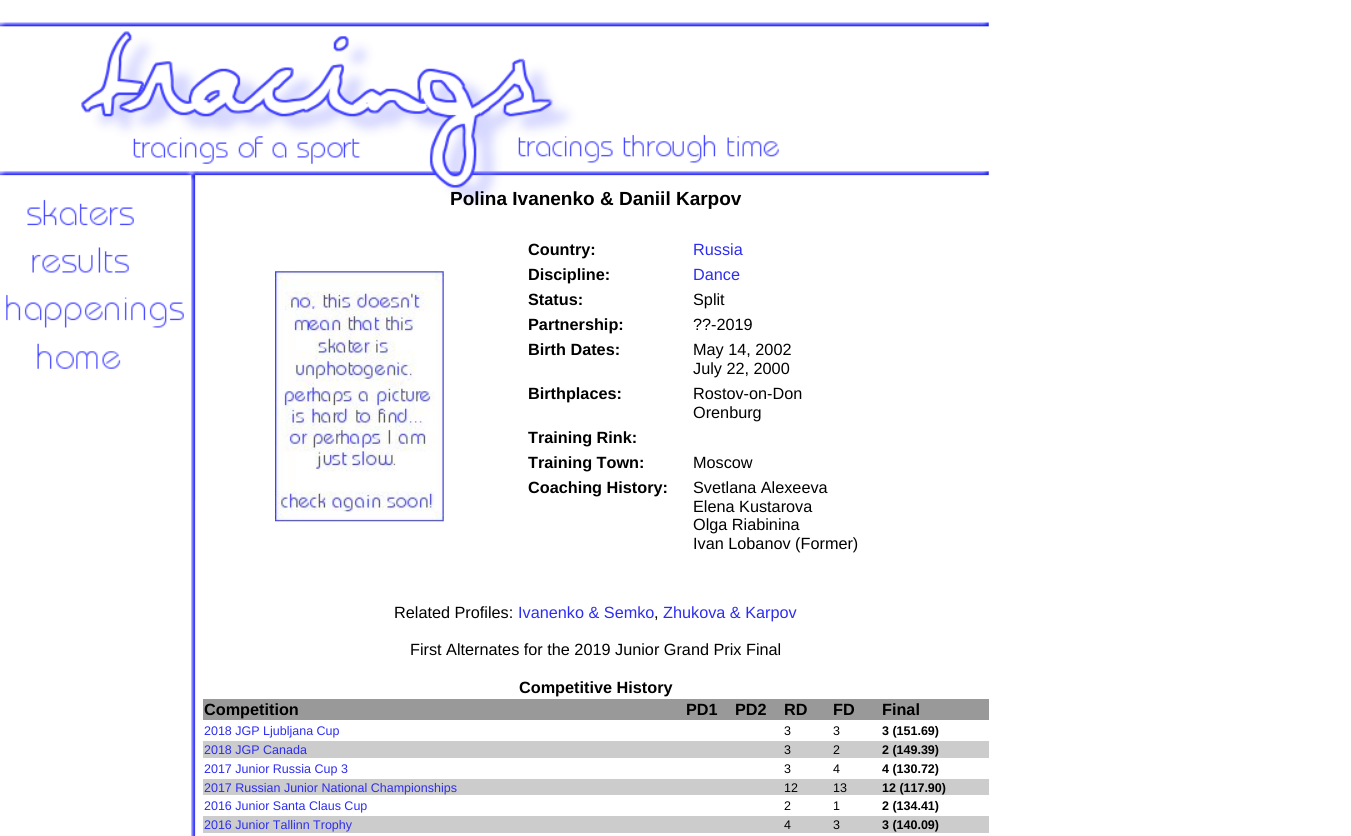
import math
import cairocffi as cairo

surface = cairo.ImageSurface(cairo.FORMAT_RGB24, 1351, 836)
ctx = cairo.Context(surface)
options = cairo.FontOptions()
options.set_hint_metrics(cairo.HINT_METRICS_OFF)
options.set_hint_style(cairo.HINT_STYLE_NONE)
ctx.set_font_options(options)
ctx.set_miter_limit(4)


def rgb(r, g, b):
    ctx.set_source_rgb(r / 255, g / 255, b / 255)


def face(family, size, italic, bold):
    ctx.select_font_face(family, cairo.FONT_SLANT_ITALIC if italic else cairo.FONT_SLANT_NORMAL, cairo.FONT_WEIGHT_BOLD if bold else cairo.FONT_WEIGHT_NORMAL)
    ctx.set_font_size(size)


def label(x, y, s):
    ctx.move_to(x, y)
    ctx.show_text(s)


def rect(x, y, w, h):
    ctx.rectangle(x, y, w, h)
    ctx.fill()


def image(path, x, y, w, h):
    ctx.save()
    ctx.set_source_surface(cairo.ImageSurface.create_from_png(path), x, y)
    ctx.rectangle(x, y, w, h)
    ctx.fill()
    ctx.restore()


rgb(255, 255, 255)
ctx.paint()
image('image0.png', 191, 500, 5, 336)
image('image1.png', 0, 0, 989, 500)
face('Liberation Sans', 19, 0, 1)
rgb(0, 0, 0)
label(450, 205, 'Polina Ivanenko & Daniil Karpov')
image('image2.png', 275, 271, 169, 251)
face('Liberation Sans', 16.25, 0, 1)
label(528, 255, 'Country:')
face('Liberation Sans', 16.25, 0, 0)
rgb(45, 45, 239)
label(693, 255, 'Russia')
face('Liberation Sans', 16.25, 0, 1)
rgb(0, 0, 0)
label(528, 280, 'Discipline:')
face('Liberation Sans', 16.25, 0, 0)
rgb(45, 45, 239)
label(693, 280, 'Dance')
face('Liberation Sans', 16.25, 0, 1)
rgb(0, 0, 0)
label(528, 305, 'Status:')
face('Liberation Sans', 16.25, 0, 0)
label(693, 305, 'Split')
face('Liberation Sans', 16.25, 0, 1)
label(528, 330, 'Partnership:')
face('Liberation Sans', 16.25, 0, 0)
label(693, 330, '??-2019')
face('Liberation Sans', 16.25, 0, 1)
label(528, 355, 'Birth Dates:')
face('Liberation Sans', 16.25, 0, 0)
label(693, 355, 'May 14, 2002')
label(693, 374, 'July 22, 2000')
face('Liberation Sans', 16.25, 0, 1)
label(528, 399, 'Birthplaces:')
face('Liberation Sans', 16.25, 0, 0)
label(693, 399, 'Rostov-on-Don')
label(693, 418, 'Orenburg')
face('Liberation Sans', 16.25, 0, 1)
label(528, 443, 'Training Rink:')
label(528, 468, 'Training Town:')
face('Liberation Sans', 16.25, 0, 0)
label(693, 468, 'Moscow')
face('Liberation Sans', 16.25, 0, 1)
label(528, 493, 'Coaching History:')
face('Liberation Sans', 16.25, 0, 0)
label(693, 493, 'Svetlana Alexeeva')
label(693, 512, 'Elena Kustarova')
label(693, 530, 'Olga Riabinina')
label(693, 549, 'Ivan Lobanov (Former)')
label(394, 618, 'Related Profiles:')
rgb(45, 45, 239)
label(518, 618, 'Ivanenko & Semko')
rgb(0, 0, 0)
label(654, 618, ',')
rgb(45, 45, 239)
label(663, 618, 'Zhukova & Karpov')
rgb(0, 0, 0)
label(410, 655, 'First Alternates for the 2019 Junior Grand Prix Final')
face('Liberation Sans', 16.25, 0, 1)
label(519, 693, 'Competitive History')
rgb(153, 153, 153)
rect(203, 699, 786, 21)
rgb(0, 0, 0)
label(204, 715, 'Competition')
label(686, 715, 'PD1')
label(735, 715, 'PD2')
label(784, 715, 'RD')
label(833, 715, 'FD')
label(882, 715, 'Final')
face('Liberation Sans', 12.5, 0, 0)
rgb(45, 45, 239)
label(204, 735, '2018 JGP Ljubljana Cup')
rgb(0, 0, 0)
label(784, 735, '3')
label(833, 735, '3')
face('Liberation Sans', 12.5, 0, 1)
label(882, 735, '3 (151.69)')
rgb(204, 204, 204)
rect(203, 741, 786, 17)
face('Liberation Sans', 12.5, 0, 0)
rgb(45, 45, 239)
label(204, 754, '2018 JGP Canada')
rgb(0, 0, 0)
label(784, 754, '3')
label(833, 754, '2')
face('Liberation Sans', 12.5, 0, 1)
label(882, 754, '2 (149.39)')
face('Liberation Sans', 12.5, 0, 0)
rgb(45, 45, 239)
label(204, 773, '2017 Junior Russia Cup 3')
rgb(0, 0, 0)
label(784, 773, '3')
label(833, 773, '4')
face('Liberation Sans', 12.5, 0, 1)
label(882, 773, '4 (130.72)')
rgb(204, 204, 204)
rect(203, 779, 786, 16)
face('Liberation Sans', 12.5, 0, 0)
rgb(45, 45, 239)
label(204, 792, '2017 Russian Junior National Championships')
rgb(0, 0, 0)
label(784, 792, '12')
label(833, 792, '13')
face('Liberation Sans', 12.5, 0, 1)
label(882, 792, '12 (117.90)')
face('Liberation Sans', 12.5, 0, 0)
rgb(45, 45, 239)
label(204, 810, '2016 Junior Santa Claus Cup')
rgb(0, 0, 0)
label(784, 810, '2')
label(833, 810, '1')
face('Liberation Sans', 12.5, 0, 1)
label(882, 810, '2 (134.41)')
rgb(204, 204, 204)
rect(203, 816, 786, 17)
face('Liberation Sans', 12.5, 0, 0)
rgb(45, 45, 239)
label(204, 829, '2016 Junior Tallinn Trophy')
rgb(0, 0, 0)
label(784, 829, '4')
label(833, 829, '3')
face('Liberation Sans', 12.5, 0, 1)
label(882, 829, '3 (140.09)')
surface.write_to_png('render.png')
